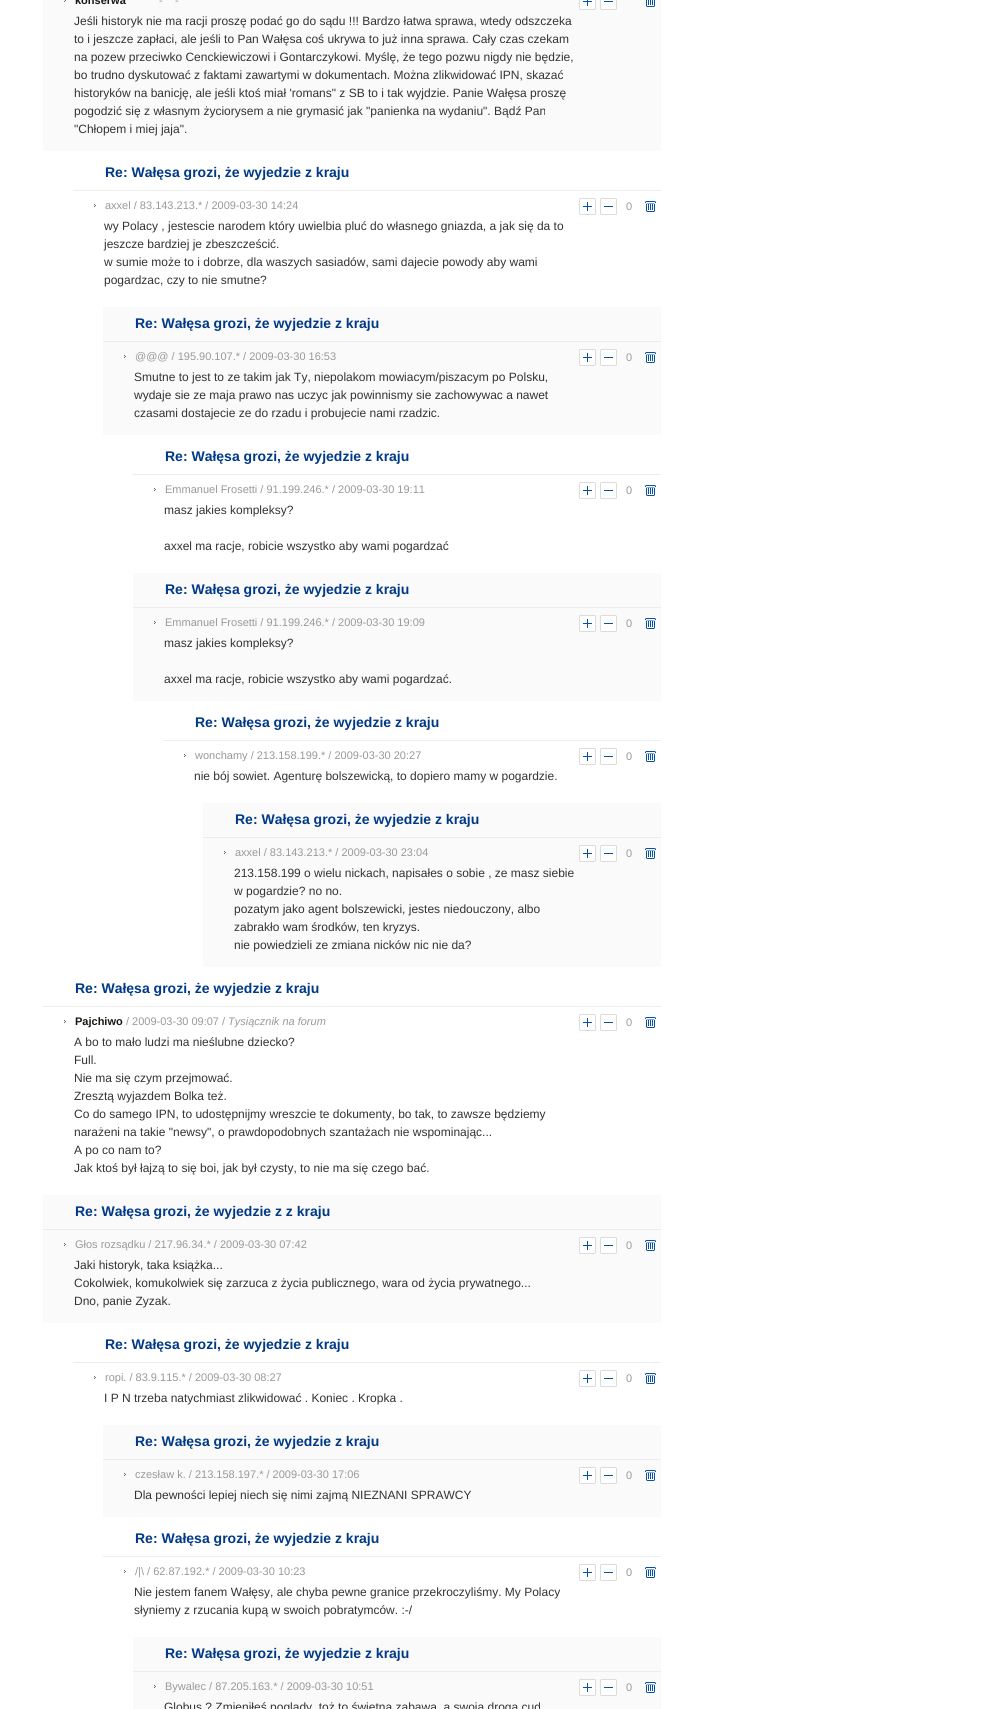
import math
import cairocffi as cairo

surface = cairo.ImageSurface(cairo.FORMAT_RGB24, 996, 1709)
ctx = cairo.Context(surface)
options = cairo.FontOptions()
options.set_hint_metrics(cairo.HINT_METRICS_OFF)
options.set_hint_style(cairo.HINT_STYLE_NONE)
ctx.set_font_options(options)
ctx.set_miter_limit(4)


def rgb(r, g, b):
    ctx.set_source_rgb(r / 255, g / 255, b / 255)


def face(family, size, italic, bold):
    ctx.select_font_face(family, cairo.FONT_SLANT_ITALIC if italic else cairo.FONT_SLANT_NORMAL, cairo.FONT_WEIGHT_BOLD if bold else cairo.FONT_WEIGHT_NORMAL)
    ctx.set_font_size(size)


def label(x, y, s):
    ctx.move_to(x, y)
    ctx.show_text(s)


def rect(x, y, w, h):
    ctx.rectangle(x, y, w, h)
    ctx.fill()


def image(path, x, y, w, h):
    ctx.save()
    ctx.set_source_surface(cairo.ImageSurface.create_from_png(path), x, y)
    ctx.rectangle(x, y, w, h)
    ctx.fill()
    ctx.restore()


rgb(255, 255, 255)
ctx.paint()
rgb(250, 250, 250)
rect(43, 0, 618, 151)
image('image0.png', 64, 0, 2, 2)
face('Liberation Sans', 11, 0, 1)
rgb(24, 23, 18)
label(75, 4, 'konserwa')
face('Liberation Sans', 11, 0, 0)
rgb(153, 153, 153)
label(159, 4, '-')
label(175, 4, '-')
image('image1.png', 579, 0, 17, 10)
image('image2.png', 600, 0, 17, 10)
image('image3.png', 645, 0, 11, 7)
face('Liberation Sans', 12, 0, 0)
rgb(51, 51, 51)
label(74, 25, 'Jeśli historyk nie ma racji proszę podać go do sądu !!! Bardzo łatwa sprawa, wtedy odszczeka')
label(74, 43, 'to i jeszcze zapłaci, ale jeśli to Pan Wałęsa coś ukrywa to już inna sprawa. Cały czas czekam')
label(74, 61, 'na pozew przeciwko Cenckiewiczowi i Gontarczykowi. Myślę, że tego pozwu nigdy nie będzie,')
label(74, 79, 'bo trudno dyskutować z faktami zawartymi w dokumentach. Można zlikwidować IPN, skazać')
label(74, 97, 'historyków na banicję, ale jeśli ktoś miał \'romans" z SB to i tak wyjdzie. Panie Wałęsa proszę')
label(74, 115, 'pogodzić się z własnym życiorysem a nie grymasić jak "panienka na wydaniu". Bądź Pan')
label(74, 133, '"Chłopem i miej jaja".')
rgb(237, 237, 237)
rect(73, 190, 588, 1)
face('Liberation Sans', 14, 0, 1)
rgb(0, 57, 134)
label(105, 177, 'Re: Wałęsa grozi, że wyjedzie z kraju')
image('image4.png', 94, 204, 2, 3)
face('Liberation Sans', 11, 0, 0)
rgb(153, 153, 153)
label(105, 209, 'axxel / 83.143.213.* / 2009-03-30 14:24')
image('image5.png', 579, 198, 17, 17)
image('image6.png', 600, 198, 17, 17)
label(626, 210, '0')
image('image7.png', 645, 201, 11, 11)
face('Liberation Sans', 12, 0, 0)
rgb(51, 51, 51)
label(104, 230, 'wy Polacy , jestescie narodem który uwielbia pluć do własnego gniazda, a jak się da to')
label(104, 248, 'jeszcze bardziej je zbeszcześcić.')
label(104, 266, 'w sumie może to i dobrze, dla waszych sasiadów, sami dajecie powody aby wami')
label(104, 284, 'pogardzac, czy to nie smutne?')
rgb(250, 250, 250)
rect(103, 307, 558, 128)
rgb(237, 237, 237)
rect(103, 341, 558, 1)
face('Liberation Sans', 14, 0, 1)
rgb(0, 57, 134)
label(135, 328, 'Re: Wałęsa grozi, że wyjedzie z kraju')
image('image8.png', 124, 355, 2, 3)
face('Liberation Sans', 11, 0, 0)
rgb(153, 153, 153)
label(135, 360, '@@@ / 195.90.107.* / 2009-03-30 16:53')
image('image5.png', 579, 349, 17, 17)
image('image6.png', 600, 349, 17, 17)
label(626, 361, '0')
image('image7.png', 645, 352, 11, 11)
face('Liberation Sans', 12, 0, 0)
rgb(51, 51, 51)
label(134, 381, 'Smutne to jest to ze takim jak Ty, niepolakom mowiacym/piszacym po Polsku,')
label(134, 399, 'wydaje sie ze maja prawo nas uczyc jak powinnismy sie zachowywac a nawet')
label(134, 417, 'czasami dostajecie ze do rzadu i probujecie nami rzadzic.')
rgb(237, 237, 237)
rect(133, 474, 528, 1)
face('Liberation Sans', 14, 0, 1)
rgb(0, 57, 134)
label(165, 461, 'Re: Wałęsa grozi, że wyjedzie z kraju')
image('image4.png', 154, 488, 2, 3)
face('Liberation Sans', 11, 0, 0)
rgb(153, 153, 153)
label(165, 493, 'Emmanuel Frosetti / 91.199.246.* / 2009-03-30 19:11')
image('image5.png', 579, 482, 17, 17)
image('image6.png', 600, 482, 17, 17)
label(626, 494, '0')
image('image7.png', 645, 485, 11, 11)
face('Liberation Sans', 12, 0, 0)
rgb(51, 51, 51)
label(164, 514, 'masz jakies kompleksy?')
label(164, 550, 'axxel ma racje, robicie wszystko aby wami pogardzać')
rgb(250, 250, 250)
rect(133, 573, 528, 128)
rgb(237, 237, 237)
rect(133, 607, 528, 1)
face('Liberation Sans', 14, 0, 1)
rgb(0, 57, 134)
label(165, 594, 'Re: Wałęsa grozi, że wyjedzie z kraju')
image('image8.png', 154, 621, 2, 3)
face('Liberation Sans', 11, 0, 0)
rgb(153, 153, 153)
label(165, 626, 'Emmanuel Frosetti / 91.199.246.* / 2009-03-30 19:09')
image('image5.png', 579, 615, 17, 17)
image('image6.png', 600, 615, 17, 17)
label(626, 627, '0')
image('image7.png', 645, 618, 11, 11)
face('Liberation Sans', 12, 0, 0)
rgb(51, 51, 51)
label(164, 647, 'masz jakies kompleksy?')
label(164, 683, 'axxel ma racje, robicie wszystko aby wami pogardzać.')
rgb(237, 237, 237)
rect(163, 740, 498, 1)
face('Liberation Sans', 14, 0, 1)
rgb(0, 57, 134)
label(195, 727, 'Re: Wałęsa grozi, że wyjedzie z kraju')
image('image4.png', 184, 754, 2, 3)
face('Liberation Sans', 11, 0, 0)
rgb(153, 153, 153)
label(195, 759, 'wonchamy / 213.158.199.* / 2009-03-30 20:27')
image('image5.png', 579, 748, 17, 17)
image('image6.png', 600, 748, 17, 17)
label(626, 760, '0')
image('image7.png', 645, 751, 11, 11)
face('Liberation Sans', 12, 0, 0)
rgb(51, 51, 51)
label(194, 780, 'nie bój sowiet. Agenturę bolszewicką, to dopiero mamy w pogardzie.')
rgb(250, 250, 250)
rect(203, 803, 458, 164)
rgb(237, 237, 237)
rect(203, 837, 458, 1)
face('Liberation Sans', 14, 0, 1)
rgb(0, 57, 134)
label(235, 824, 'Re: Wałęsa grozi, że wyjedzie z kraju')
image('image8.png', 224, 851, 2, 3)
face('Liberation Sans', 11, 0, 0)
rgb(153, 153, 153)
label(235, 856, 'axxel / 83.143.213.* / 2009-03-30 23:04')
image('image5.png', 579, 845, 17, 17)
image('image6.png', 600, 845, 17, 17)
label(626, 857, '0')
image('image7.png', 645, 848, 11, 11)
face('Liberation Sans', 12, 0, 0)
rgb(51, 51, 51)
label(234, 877, '213.158.199 o wielu nickach, napisałes o sobie , ze masz siebie')
label(234, 895, 'w pogardzie? no no.')
label(234, 913, 'pozatym jako agent bolszewicki, jestes niedouczony, albo')
label(234, 931, 'zabrakło wam środków, ten kryzys.')
label(234, 949, 'nie powiedzieli ze zmiana nicków nic nie da?')
rgb(237, 237, 237)
rect(43, 1006, 618, 1)
face('Liberation Sans', 14, 0, 1)
rgb(0, 57, 134)
label(75, 993, 'Re: Wałęsa grozi, że wyjedzie z kraju')
image('image4.png', 64, 1020, 2, 3)
face('Liberation Sans', 11, 0, 1)
rgb(24, 23, 18)
label(75, 1025, 'Pajchiwo')
face('Liberation Sans', 11, 0, 0)
rgb(153, 153, 153)
label(126, 1025, '/ 2009-03-30 09:07 /')
face('Liberation Sans', 11, 1, 0)
label(228, 1025, 'Tysiącznik na forum')
image('image5.png', 579, 1014, 17, 17)
image('image6.png', 600, 1014, 17, 17)
face('Liberation Sans', 11, 0, 0)
label(626, 1026, '0')
image('image7.png', 645, 1017, 11, 11)
face('Liberation Sans', 12, 0, 0)
rgb(51, 51, 51)
label(74, 1046, 'A bo to mało ludzi ma nieślubne dziecko?')
label(74, 1064, 'Full.')
label(74, 1082, 'Nie ma się czym przejmować.')
label(74, 1100, 'Zresztą wyjazdem Bolka też.')
label(74, 1118, 'Co do samego IPN, to udostępnijmy wreszcie te dokumenty, bo tak, to zawsze będziemy')
label(74, 1136, 'narażeni na takie "newsy", o prawdopodobnych szantażach nie wspominając...')
label(74, 1154, 'A po co nam to?')
label(74, 1172, 'Jak ktoś był łajzą to się boi, jak był czysty, to nie ma się czego bać.')
rgb(250, 250, 250)
rect(43, 1195, 618, 128)
rgb(237, 237, 237)
rect(43, 1229, 618, 1)
face('Liberation Sans', 14, 0, 1)
rgb(0, 57, 134)
label(75, 1216, 'Re: Wałęsa grozi, że wyjedzie z z kraju')
image('image8.png', 64, 1243, 2, 3)
face('Liberation Sans', 11, 0, 0)
rgb(153, 153, 153)
label(75, 1248, 'Głos rozsądku / 217.96.34.* / 2009-03-30 07:42')
image('image5.png', 579, 1237, 17, 17)
image('image6.png', 600, 1237, 17, 17)
label(626, 1249, '0')
image('image7.png', 645, 1240, 11, 11)
face('Liberation Sans', 12, 0, 0)
rgb(51, 51, 51)
label(74, 1269, 'Jaki historyk, taka książka...')
label(74, 1287, 'Cokolwiek, komukolwiek się zarzuca z życia publicznego, wara od życia prywatnego...')
label(74, 1305, 'Dno, panie Zyzak.')
rgb(237, 237, 237)
rect(73, 1362, 588, 1)
face('Liberation Sans', 14, 0, 1)
rgb(0, 57, 134)
label(105, 1349, 'Re: Wałęsa grozi, że wyjedzie z kraju')
image('image4.png', 94, 1376, 2, 3)
face('Liberation Sans', 11, 0, 0)
rgb(153, 153, 153)
label(105, 1381, 'ropi. / 83.9.115.* / 2009-03-30 08:27')
image('image5.png', 579, 1370, 17, 17)
image('image6.png', 600, 1370, 17, 17)
label(626, 1382, '0')
image('image7.png', 645, 1373, 11, 11)
face('Liberation Sans', 12, 0, 0)
rgb(51, 51, 51)
label(104, 1402, 'I P N trzeba natychmiast zlikwidować . Koniec . Kropka .')
rgb(250, 250, 250)
rect(103, 1425, 558, 92)
rgb(237, 237, 237)
rect(103, 1459, 558, 1)
face('Liberation Sans', 14, 0, 1)
rgb(0, 57, 134)
label(135, 1446, 'Re: Wałęsa grozi, że wyjedzie z kraju')
image('image8.png', 124, 1473, 2, 3)
face('Liberation Sans', 11, 0, 0)
rgb(153, 153, 153)
label(135, 1478, 'czesław k. / 213.158.197.* / 2009-03-30 17:06')
image('image5.png', 579, 1467, 17, 17)
image('image6.png', 600, 1467, 17, 17)
label(626, 1479, '0')
image('image7.png', 645, 1470, 11, 11)
face('Liberation Sans', 12, 0, 0)
rgb(51, 51, 51)
label(134, 1499, 'Dla pewności lepiej niech się nimi zajmą NIEZNANI SPRAWCY')
rgb(237, 237, 237)
rect(103, 1556, 558, 1)
face('Liberation Sans', 14, 0, 1)
rgb(0, 57, 134)
label(135, 1543, 'Re: Wałęsa grozi, że wyjedzie z kraju')
image('image4.png', 124, 1570, 2, 3)
face('Liberation Sans', 11, 0, 0)
rgb(153, 153, 153)
label(135, 1575, '/|\\ / 62.87.192.* / 2009-03-30 10:23')
image('image5.png', 579, 1564, 17, 17)
image('image6.png', 600, 1564, 17, 17)
label(626, 1576, '0')
image('image7.png', 645, 1567, 11, 11)
face('Liberation Sans', 12, 0, 0)
rgb(51, 51, 51)
label(134, 1596, 'Nie jestem fanem Wałęsy, ale chyba pewne granice przekroczyliśmy. My Polacy')
label(134, 1614, 'słyniemy z rzucania kupą w swoich pobratymców. :-/')
rgb(250, 250, 250)
rect(133, 1637, 528, 72)
rgb(237, 237, 237)
rect(133, 1671, 528, 1)
face('Liberation Sans', 14, 0, 1)
rgb(0, 57, 134)
label(165, 1658, 'Re: Wałęsa grozi, że wyjedzie z kraju')
image('image8.png', 154, 1685, 2, 3)
face('Liberation Sans', 11, 0, 0)
rgb(153, 153, 153)
label(165, 1690, 'Bywalec / 87.205.163.* / 2009-03-30 10:51')
image('image5.png', 579, 1679, 17, 17)
image('image6.png', 600, 1679, 17, 17)
label(626, 1691, '0')
image('image7.png', 645, 1682, 11, 11)
face('Liberation Sans', 12, 0, 0)
rgb(51, 51, 51)
label(164, 1711, 'Globus ? Zmieniłeś poglądy, toż to świetna zabawa, a swoją drogą cud')
surface.write_to_png('render.png')
